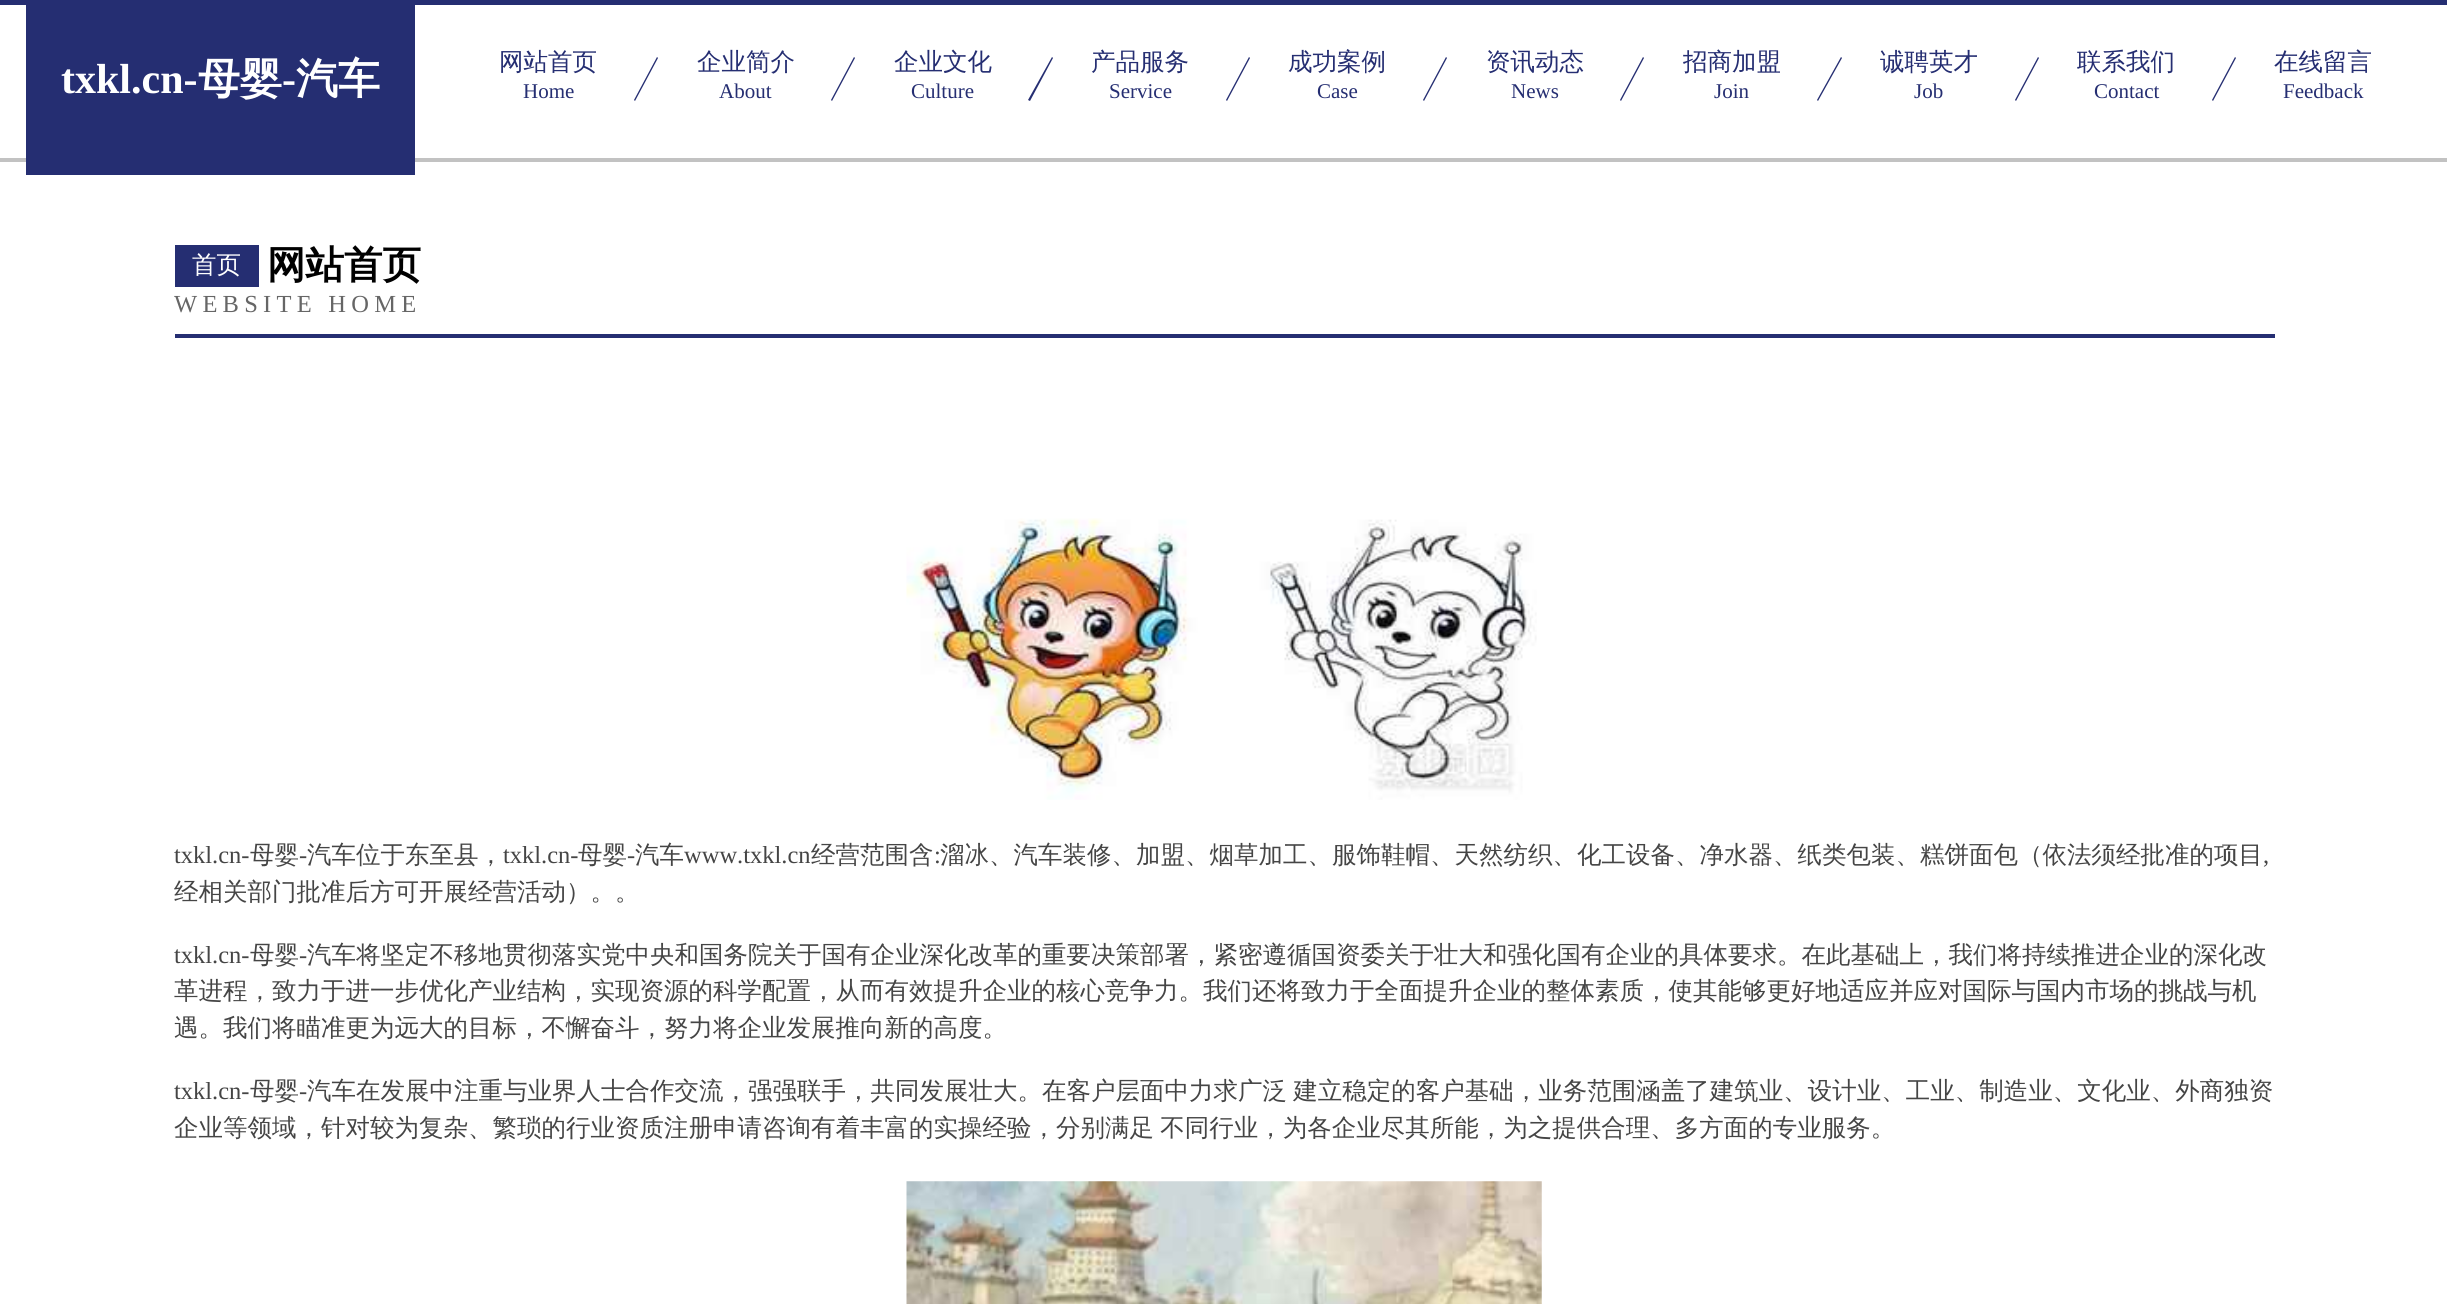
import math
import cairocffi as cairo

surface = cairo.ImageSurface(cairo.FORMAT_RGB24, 2447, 1304)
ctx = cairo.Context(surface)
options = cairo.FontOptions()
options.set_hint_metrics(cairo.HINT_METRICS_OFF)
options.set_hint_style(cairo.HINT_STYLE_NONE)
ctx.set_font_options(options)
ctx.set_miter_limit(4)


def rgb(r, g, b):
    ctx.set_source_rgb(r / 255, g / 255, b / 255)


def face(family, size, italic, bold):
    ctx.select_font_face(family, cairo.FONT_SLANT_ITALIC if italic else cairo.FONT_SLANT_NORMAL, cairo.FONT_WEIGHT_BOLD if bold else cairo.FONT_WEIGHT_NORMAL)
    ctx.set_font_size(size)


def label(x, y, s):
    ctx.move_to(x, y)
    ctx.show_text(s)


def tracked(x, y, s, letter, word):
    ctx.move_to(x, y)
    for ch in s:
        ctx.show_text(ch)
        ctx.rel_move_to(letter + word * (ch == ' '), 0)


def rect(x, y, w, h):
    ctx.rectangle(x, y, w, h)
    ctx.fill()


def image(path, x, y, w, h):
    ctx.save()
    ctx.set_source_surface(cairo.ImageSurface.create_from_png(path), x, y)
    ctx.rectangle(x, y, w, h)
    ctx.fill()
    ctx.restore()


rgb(255, 255, 255)
ctx.paint()
rgb(37, 46, 114)
rect(0, 0, 2447, 5)
rgb(194, 194, 194)
rect(0, 158, 2447, 4)
rgb(37, 46, 114)
rect(26, 5, 389, 170)
face('Liberation Serif', 42, 0, 1)
rgb(255, 255, 255)
label(61, 93, 'txkl.cn-')
face('WenQuanYi Zen Hei', 42, 0, 1)
label(198, 93, '母婴')
face('Liberation Serif', 42, 0, 1)
label(282, 93, '-')
face('WenQuanYi Zen Hei', 42, 0, 1)
label(296, 93, '汽车')
face('WenQuanYi Zen Hei Medium', 24.5, 0, 0)
rgb(37, 46, 114)
label(499, 70, '网站首页')
ctx.new_path()
ctx.move_to(657, 57)
ctx.line_to(658, 58)
ctx.line_to(635, 101)
ctx.line_to(634, 100)
ctx.close_path()
ctx.fill()
face('Liberation Serif', 21, 0, 0)
label(523, 98, 'Home')
face('WenQuanYi Zen Hei Medium', 24.5, 0, 0)
label(697, 70, '企业简介')
ctx.new_path()
ctx.move_to(854, 57)
ctx.line_to(855, 58)
ctx.line_to(832, 101)
ctx.line_to(831, 100)
ctx.close_path()
ctx.fill()
face('Liberation Serif', 21, 0, 0)
label(719, 98, 'About')
face('WenQuanYi Zen Hei Medium', 24.5, 0, 0)
label(894, 70, '企业文化')
ctx.new_path()
ctx.move_to(1052, 57)
ctx.line_to(1053, 58)
ctx.line_to(1030, 101)
ctx.line_to(1028, 100)
ctx.close_path()
ctx.fill()
face('Liberation Serif', 21, 0, 0)
label(911, 98, 'Culture')
face('WenQuanYi Zen Hei Medium', 24.5, 0, 0)
label(1091, 70, '产品服务')
ctx.new_path()
ctx.move_to(1249, 57)
ctx.line_to(1250, 58)
ctx.line_to(1227, 101)
ctx.line_to(1226, 100)
ctx.close_path()
ctx.fill()
face('Liberation Serif', 21, 0, 0)
label(1109, 98, 'Service')
face('WenQuanYi Zen Hei Medium', 24.5, 0, 0)
label(1288, 70, '成功案例')
ctx.new_path()
ctx.move_to(1446, 57)
ctx.line_to(1447, 58)
ctx.line_to(1424, 101)
ctx.line_to(1423, 100)
ctx.close_path()
ctx.fill()
face('Liberation Serif', 21, 0, 0)
label(1317, 98, 'Case')
face('WenQuanYi Zen Hei Medium', 24.5, 0, 0)
label(1486, 70, '资讯动态')
ctx.new_path()
ctx.move_to(1643, 57)
ctx.line_to(1644, 58)
ctx.line_to(1621, 101)
ctx.line_to(1620, 100)
ctx.close_path()
ctx.fill()
face('Liberation Serif', 21, 0, 0)
label(1511, 98, 'News')
face('WenQuanYi Zen Hei Medium', 24.5, 0, 0)
label(1683, 70, '招商加盟')
ctx.new_path()
ctx.move_to(1841, 57)
ctx.line_to(1842, 58)
ctx.line_to(1818, 101)
ctx.line_to(1817, 100)
ctx.close_path()
ctx.fill()
face('Liberation Serif', 21, 0, 0)
label(1714, 98, 'Join')
face('WenQuanYi Zen Hei Medium', 24.5, 0, 0)
label(1880, 70, '诚聘英才')
ctx.new_path()
ctx.move_to(2038, 57)
ctx.line_to(2039, 58)
ctx.line_to(2016, 101)
ctx.line_to(2015, 100)
ctx.close_path()
ctx.fill()
face('Liberation Serif', 21, 0, 0)
label(1914, 98, 'Job')
face('WenQuanYi Zen Hei Medium', 24.5, 0, 0)
label(2077, 70, '联系我们')
ctx.new_path()
ctx.move_to(2235, 57)
ctx.line_to(2236, 58)
ctx.line_to(2213, 101)
ctx.line_to(2212, 100)
ctx.close_path()
ctx.fill()
face('Liberation Serif', 21, 0, 0)
label(2094, 98, 'Contact')
face('WenQuanYi Zen Hei Medium', 24.5, 0, 0)
label(2274, 70, '在线留言')
face('Liberation Serif', 21, 0, 0)
label(2283, 98, 'Feedback')
rect(175, 334, 2100, 4)
rect(175, 245, 84, 42)
face('WenQuanYi Zen Hei Medium', 24.5, 0, 0)
rgb(255, 255, 255)
label(192, 273, '首页')
face('WenQuanYi Zen Hei', 38.5, 0, 1)
rgb(0, 0, 0)
label(267, 278, '网站首页')
face('Liberation Serif', 24.5, 0, 0)
rgb(102, 102, 102)
tracked(174, 312, 'WEBSITE HOME', 5.25, 0)
image('image0.png', 906, 518, 631, 282)
rgb(69, 69, 69)
label(174, 863, 'txkl.cn-')
face('WenQuanYi Zen Hei Medium', 24.5, 0, 0)
label(250, 863, '母婴')
face('Liberation Serif', 24.5, 0, 0)
label(299, 863, '-')
face('WenQuanYi Zen Hei Medium', 24.5, 0, 0)
label(307, 863, '汽车位于东至县，')
face('Liberation Serif', 24.5, 0, 0)
label(503, 863, 'txkl.cn-')
face('WenQuanYi Zen Hei Medium', 24.5, 0, 0)
label(578, 863, '母婴')
face('Liberation Serif', 24.5, 0, 0)
label(627, 863, '-')
face('WenQuanYi Zen Hei Medium', 24.5, 0, 0)
label(635, 863, '汽车')
face('Liberation Serif', 24.5, 0, 0)
label(684, 863, 'www.txkl.cn')
face('WenQuanYi Zen Hei Medium', 24.5, 0, 0)
label(811, 863, '经营范围含')
face('Liberation Serif', 24.5, 0, 0)
label(934, 863, ':')
face('WenQuanYi Zen Hei Medium', 24.5, 0, 0)
label(940, 863, '溜冰、汽车装修、加盟、烟草加工、服饰鞋帽、天然纺织、化工设备、净水器、纸类包装、糕饼面包（依法须经批准的项目')
face('Liberation Serif', 24.5, 0, 0)
label(2263, 863, ',')
face('WenQuanYi Zen Hei Medium', 24.5, 0, 0)
label(174, 900, '经相关部门批准后方可开展经营活动）。。')
face('Liberation Serif', 24.5, 0, 0)
label(174, 963, 'txkl.cn-')
face('WenQuanYi Zen Hei Medium', 24.5, 0, 0)
label(250, 963, '母婴')
face('Liberation Serif', 24.5, 0, 0)
label(299, 963, '-')
face('WenQuanYi Zen Hei Medium', 24.5, 0, 0)
label(307, 963, '汽车将坚定不移地贯彻落实党中央和国务院关于国有企业深化改革的重要决策部署，紧密遵循国资委关于壮大和强化国有企业的具体要求。在此基础上，我们将持续推进企业的深化改')
label(174, 999, '革进程，致力于进一步优化产业结构，实现资源的科学配置，从而有效提升企业的核心竞争力。我们还将致力于全面提升企业的整体素质，使其能够更好地适应并应对国际与国内市场的挑战与机')
label(174, 1036, '遇。我们将瞄准更为远大的目标，不懈奋斗，努力将企业发展推向新的高度。')
face('Liberation Serif', 24.5, 0, 0)
label(174, 1099, 'txkl.cn-')
face('WenQuanYi Zen Hei Medium', 24.5, 0, 0)
label(250, 1099, '母婴')
face('Liberation Serif', 24.5, 0, 0)
label(299, 1099, '-')
face('WenQuanYi Zen Hei Medium', 24.5, 0, 0)
tracked(307, 1099, '汽车在发展中注重与业界人士合作交流，强强联手，共同发展壮大。在客户层面中力求广泛 建立稳定的客户基础，业务范围涵盖了建筑业、设计业、工业、制造业、文化业、外商独资', 0, -1)
tracked(174, 1136, '企业等领域，针对较为复杂、繁琐的行业资质注册申请咨询有着丰富的实操经验，分别满足 不同行业，为各企业尽其所能，为之提供合理、多方面的专业服务。', 0, -1)
image('image1.png', 906, 1181, 636, 123)
surface.write_to_png('render.png')
